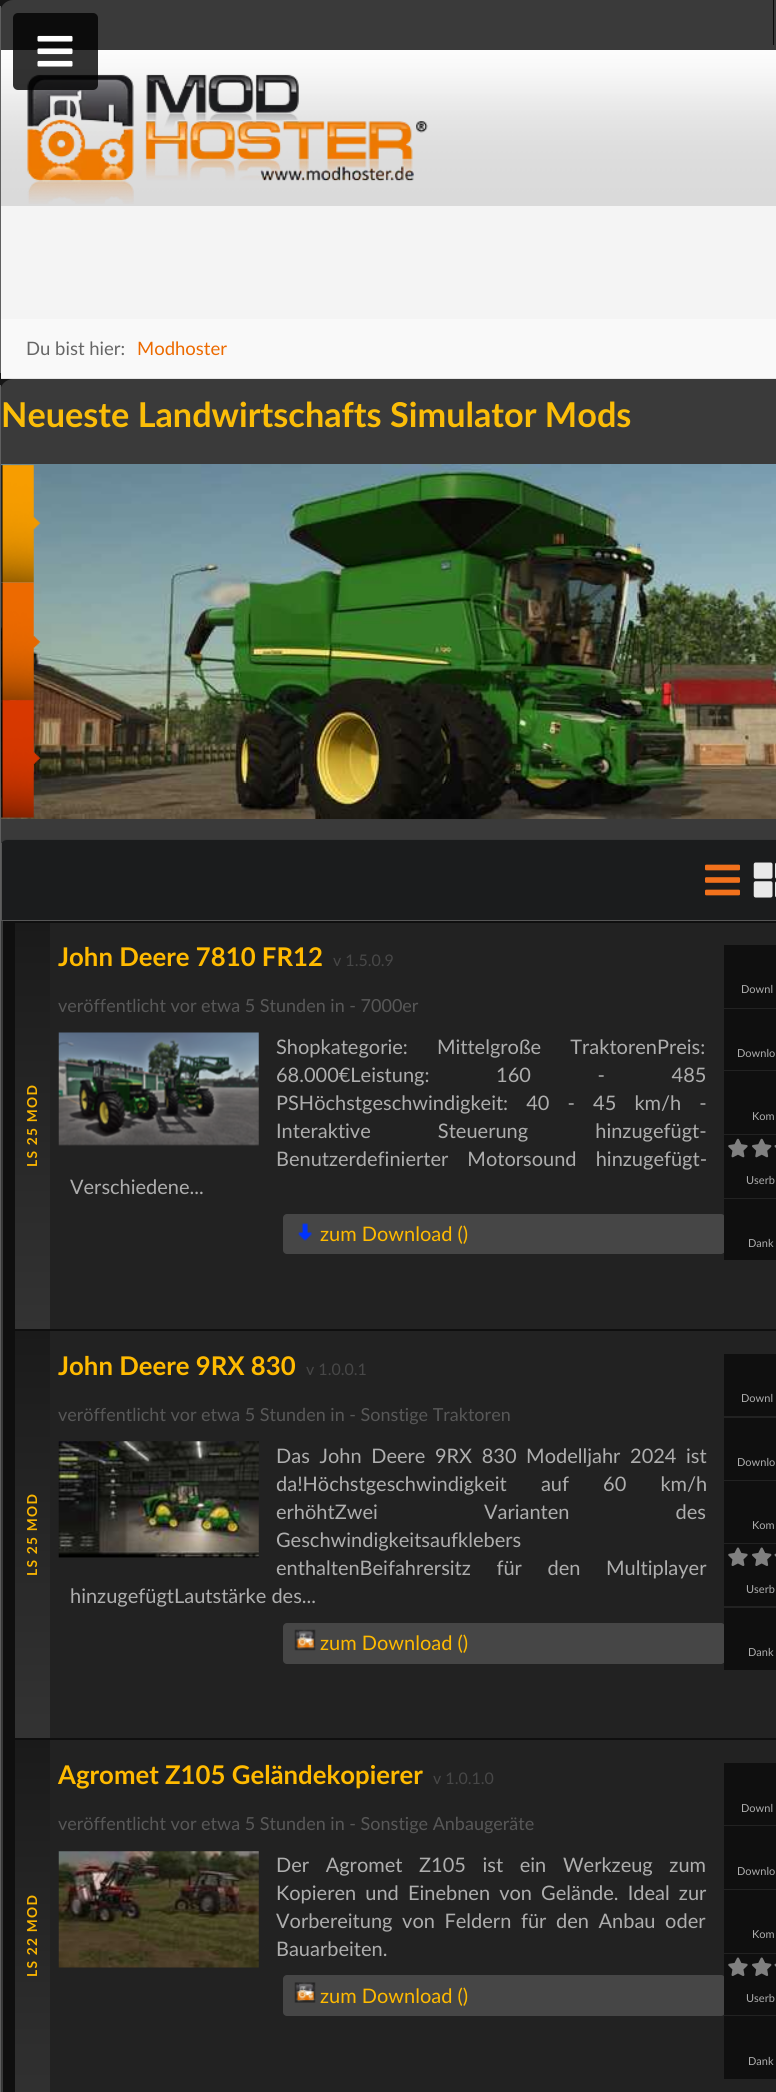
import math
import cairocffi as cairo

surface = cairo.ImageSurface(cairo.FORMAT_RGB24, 776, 2092)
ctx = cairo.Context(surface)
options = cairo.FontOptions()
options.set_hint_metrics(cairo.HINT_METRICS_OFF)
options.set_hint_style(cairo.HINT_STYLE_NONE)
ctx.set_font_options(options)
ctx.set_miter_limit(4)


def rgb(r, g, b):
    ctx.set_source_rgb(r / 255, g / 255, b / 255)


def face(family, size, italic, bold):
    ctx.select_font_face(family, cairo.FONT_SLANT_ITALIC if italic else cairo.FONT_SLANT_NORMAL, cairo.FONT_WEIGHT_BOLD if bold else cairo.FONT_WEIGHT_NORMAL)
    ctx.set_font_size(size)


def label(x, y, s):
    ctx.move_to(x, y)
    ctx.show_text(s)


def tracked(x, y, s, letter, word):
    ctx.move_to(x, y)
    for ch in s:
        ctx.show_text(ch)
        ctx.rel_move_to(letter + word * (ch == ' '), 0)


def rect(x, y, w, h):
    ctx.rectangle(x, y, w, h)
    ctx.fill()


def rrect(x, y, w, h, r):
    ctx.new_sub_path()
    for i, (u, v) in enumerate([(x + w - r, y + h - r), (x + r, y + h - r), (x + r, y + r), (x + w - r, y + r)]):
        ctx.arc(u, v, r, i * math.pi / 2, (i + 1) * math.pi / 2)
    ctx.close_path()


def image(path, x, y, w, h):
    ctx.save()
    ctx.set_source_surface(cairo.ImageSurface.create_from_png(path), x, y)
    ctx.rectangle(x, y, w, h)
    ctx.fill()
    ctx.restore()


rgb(22, 22, 22)
ctx.paint()
rgb(58, 58, 58)
ctx.new_path()
ctx.move_to(13, 0)
ctx.line_to(776, 0)
ctx.line_to(776, 379)
ctx.line_to(13, 379)
ctx.curve_to(6, 379, 0, 373, 0, 366)
ctx.line_to(0, 13)
ctx.curve_to(0, 6, 6, 0, 13, 0)
ctx.close_path()
ctx.fill()
rgb(95, 95, 95)
rect(0, 6, 1, 367)
rgb(10, 10, 10)
rect(773, 0, 1, 45)
rgb(244, 244, 244)
rect(1, 206, 775, 113)
image('image1.png', 1, 50, 775, 156)
image('image2.png', 27, 74, 401, 130)
ctx.set_source_rgba(0, 0, 0, 0.8)
rrect(13, 13, 85, 77, 5)
ctx.fill()
image('image0.png', 37, 35, 36, 32)
rgb(249, 249, 249)
rect(1, 319, 775, 59)
rgb(229, 229, 229)
rect(1, 378, 775, 1)
face('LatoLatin', 18.5, 0, 0)
rgb(102, 102, 102)
label(26, 355, 'Du bist hier:')
rgb(236, 106, 0)
label(137, 355, 'Modhoster')
rgb(58, 58, 58)
ctx.new_path()
ctx.move_to(13, 379)
ctx.line_to(776, 379)
ctx.line_to(776, 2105)
ctx.line_to(13, 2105)
ctx.curve_to(6, 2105, 0, 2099, 0, 2092)
ctx.line_to(0, 392)
ctx.curve_to(0, 385, 6, 379, 13, 379)
ctx.close_path()
ctx.fill()
rgb(95, 95, 95)
rect(0, 385, 1, 1707)
face('LatoLatin', 34.25, 0, 1)
rgb(251, 189, 8)
label(1, 427, 'Neueste Landwirtschafts Simulator Mods')
image('image3.png', 1, 464, 775, 355)
image('image4.png', 1, 464, 40, 119)
image('image5.png', 1, 582, 40, 118)
image('image6.png', 1, 699, 40, 119)
rrect(1.5, 839.5, 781, 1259, 5.5)
rgb(54, 55, 55)
ctx.set_line_width(1)
ctx.stroke()
rgb(27, 28, 29)
ctx.new_path()
ctx.move_to(7, 840)
ctx.line_to(776, 840)
ctx.line_to(776, 921)
ctx.line_to(1, 921)
ctx.line_to(1, 846)
ctx.curve_to(1, 842.5, 3.5, 840, 7, 840)
ctx.close_path()
ctx.fill()
rgb(85, 85, 85)
rect(1, 920, 775, 1)
rect(1, 843, 1, 78)
image('image7.png', 705, 864, 35, 32)
image('image8.png', 753, 862, 23, 36)
rgb(15, 15, 15)
rect(3, 921, 773, 1171)
rgb(34, 34, 34)
rect(50, 923, 726, 406)
gradient = cairo.LinearGradient(33, 1329, 33, 923)
gradient.add_color_stop_rgba(0, 0.2, 0.2, 0.2, 1)
gradient.add_color_stop_rgba(1, 0.102, 0.102, 0.102, 1)
ctx.set_source(gradient)
rect(15, 923, 35, 406)
face('LatoLatin', 13.75, 0, 1)
rgb(249, 180, 0)
ctx.save()
ctx.translate(37, 1167)
ctx.rotate(-90 * math.pi / 180)
tracked(0, 0, 'LS 25 MOD', 1.25, 0)
ctx.restore()
face('LatoLatin', 25.75, 0, 1)
rgb(255, 186, 0)
label(58, 966, 'John Deere 7810 FR12')
face('LatoLatin', 16, 0, 0)
rgb(71, 71, 71)
label(333, 966, 'v 1.5.0.9')
face('LatoLatin', 18, 0, 0)
rgb(87, 87, 87)
label(58, 1012, 'veröffentlicht vor etwa 5 Stunden in - 7000er')
rgb(15, 15, 15)
rect(724, 945, 52, 63)
face('LatoLatin', 11, 0, 0)
rgb(174, 174, 174)
label(741, 993, 'Downl')
rgb(15, 15, 15)
rect(724, 1009, 52, 61)
rgb(174, 174, 174)
label(737, 1057, 'Downlo')
rgb(15, 15, 15)
rect(724, 1071, 52, 63)
rgb(174, 174, 174)
label(752, 1120, 'Kom')
rgb(15, 15, 15)
rect(724, 1135, 52, 63)
image('image9.png', 728, 1138, 20, 20)
image('image10.png', 752, 1138, 20, 20)
image('image11.png', 774, 1145, 2, 3)
rgb(174, 174, 174)
label(746, 1184, 'Userb')
rgb(70, 70, 70)
rrect(283, 1214, 442, 40, 4)
ctx.fill()
rgb(15, 15, 15)
rect(724, 1199, 52, 61)
rgb(174, 174, 174)
label(748, 1247, 'Dank')
image('image12.png', 58, 1032, 201, 114)
face('LatoLatin', 20, 0, 0)
tracked(276, 1054, 'Shopkategorie: Mittelgroße TraktorenPreis:', 0, 24)
tracked(276, 1082, '68.000€Leistung: 160 - 485', 0, 61.5)
tracked(276, 1110, 'PSHöchstgeschwindigkeit: 40 - 45 km/h -', 0, 13)
tracked(276, 1138, 'Interaktive Steuerung hinzugefügt-', 0, 62)
tracked(276, 1166, 'Benutzerdefinierter Motorsound hinzugefügt-', 0, 14)
label(70, 1194, 'Verschiedene...')
image('image13.png', 298, 1223, 14, 18)
rgb(255, 186, 0)
label(320, 1241, 'zum Download ()')
rgb(34, 34, 34)
rect(50, 1331, 726, 407)
gradient = cairo.LinearGradient(33, 1738, 33, 1331)
gradient.add_color_stop_rgba(0, 0.2, 0.2, 0.2, 1)
gradient.add_color_stop_rgba(1, 0.102, 0.102, 0.102, 1)
ctx.set_source(gradient)
rect(15, 1331, 35, 407)
face('LatoLatin', 13.75, 0, 1)
rgb(249, 180, 0)
ctx.save()
ctx.translate(37, 1576)
ctx.rotate(-90 * math.pi / 180)
tracked(0, 0, 'LS 25 MOD', 1.25, 0)
ctx.restore()
face('LatoLatin', 25.75, 0, 1)
rgb(255, 186, 0)
label(58, 1375, 'John Deere 9RX 830')
face('LatoLatin', 16, 0, 0)
rgb(71, 71, 71)
label(306, 1375, 'v 1.0.0.1')
face('LatoLatin', 18, 0, 0)
rgb(87, 87, 87)
label(58, 1421, 'veröffentlicht vor etwa 5 Stunden in - Sonstige Traktoren')
rgb(15, 15, 15)
rect(724, 1354, 52, 62)
face('LatoLatin', 11, 0, 0)
rgb(174, 174, 174)
label(741, 1402, 'Downl')
rgb(15, 15, 15)
rect(724, 1418, 52, 62)
rgb(174, 174, 174)
label(737, 1466, 'Downlo')
rgb(15, 15, 15)
rect(724, 1481, 52, 62)
rgb(174, 174, 174)
label(752, 1529, 'Kom')
rgb(15, 15, 15)
rect(724, 1544, 52, 62)
image('image14.png', 728, 1547, 20, 19)
image('image15.png', 752, 1547, 20, 19)
image('image16.png', 774, 1553, 2, 4)
rgb(174, 174, 174)
label(746, 1593, 'Userb')
rgb(70, 70, 70)
rrect(283, 1623, 442, 41, 4)
ctx.fill()
rgb(15, 15, 15)
rect(724, 1608, 52, 62)
rgb(174, 174, 174)
label(748, 1656, 'Dank')
image('image17.png', 58, 1441, 201, 117)
face('LatoLatin', 20, 0, 0)
tracked(276, 1463, 'Das John Deere 9RX 830 Modelljahr 2024 ist', 0, 4.5)
tracked(276, 1491, 'da!Höchstgeschwindigkeit auf 60 km/h', 0, 29)
tracked(276, 1519, 'erhöhtZwei Varianten des', 0, 101)
label(276, 1547, 'Geschwindigkeitsaufklebers')
tracked(276, 1575, 'enthaltenBeifahrersitz für den Multiplayer', 0, 20.5)
label(70, 1603, 'hinzugefügtLautstärke des...')
image('image18.png', 294, 1629, 22, 22)
rgb(255, 186, 0)
label(320, 1650, 'zum Download ()')
rgb(34, 34, 34)
rect(50, 1740, 726, 352)
gradient = cairo.LinearGradient(33, 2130, 33, 1740)
gradient.add_color_stop_rgba(0, 0.2, 0.2, 0.2, 1)
gradient.add_color_stop_rgba(1, 0.102, 0.102, 0.102, 1)
ctx.set_source(gradient)
rect(15, 1740, 35, 352)
face('LatoLatin', 13.75, 0, 1)
rgb(249, 180, 0)
ctx.save()
ctx.translate(37, 1977)
ctx.rotate(-90 * math.pi / 180)
tracked(0, 0, 'LS 22 MOD', 1.25, 0)
ctx.restore()
face('LatoLatin', 25.75, 0, 1)
rgb(255, 186, 0)
label(58, 1784, 'Agromet Z105 Geländekopierer')
face('LatoLatin', 16, 0, 0)
rgb(71, 71, 71)
label(433, 1784, 'v 1.0.1.0')
face('LatoLatin', 18, 0, 0)
rgb(87, 87, 87)
label(58, 1830, 'veröffentlicht vor etwa 5 Stunden in - Sonstige Anbaugeräte')
rgb(15, 15, 15)
rect(724, 1763, 52, 62)
face('LatoLatin', 11, 0, 0)
rgb(174, 174, 174)
label(741, 1812, 'Downl')
rgb(15, 15, 15)
rect(724, 1826, 52, 63)
rgb(174, 174, 174)
label(737, 1875, 'Downlo')
rgb(15, 15, 15)
rect(724, 1890, 52, 63)
rgb(174, 174, 174)
label(752, 1938, 'Kom')
rgb(70, 70, 70)
rrect(283, 1975, 442, 41, 4)
ctx.fill()
rgb(15, 15, 15)
rect(724, 1954, 52, 61)
image('image14.png', 728, 1957, 20, 19)
image('image15.png', 752, 1957, 20, 19)
image('image16.png', 774, 1963, 2, 4)
rgb(174, 174, 174)
label(746, 2002, 'Userb')
rgb(15, 15, 15)
rect(724, 2016, 52, 63)
rgb(174, 174, 174)
label(748, 2065, 'Dank')
image('image19.png', 58, 1851, 201, 117)
face('LatoLatin', 20, 0, 0)
tracked(276, 1872, 'Der Agromet Z105 ist ein Werkzeug zum', 0, 11.5)
tracked(276, 1900, 'Kopieren und Einebnen von Gelände. Ideal zur', 0, 4)
tracked(276, 1928, 'Vorbereitung von Feldern für den Anbau oder', 0, 4.5)
label(276, 1956, 'Bauarbeiten.')
image('image20.png', 294, 1982, 22, 21)
rgb(255, 186, 0)
label(320, 2003, 'zum Download ()')
surface.write_to_png('render.png')
